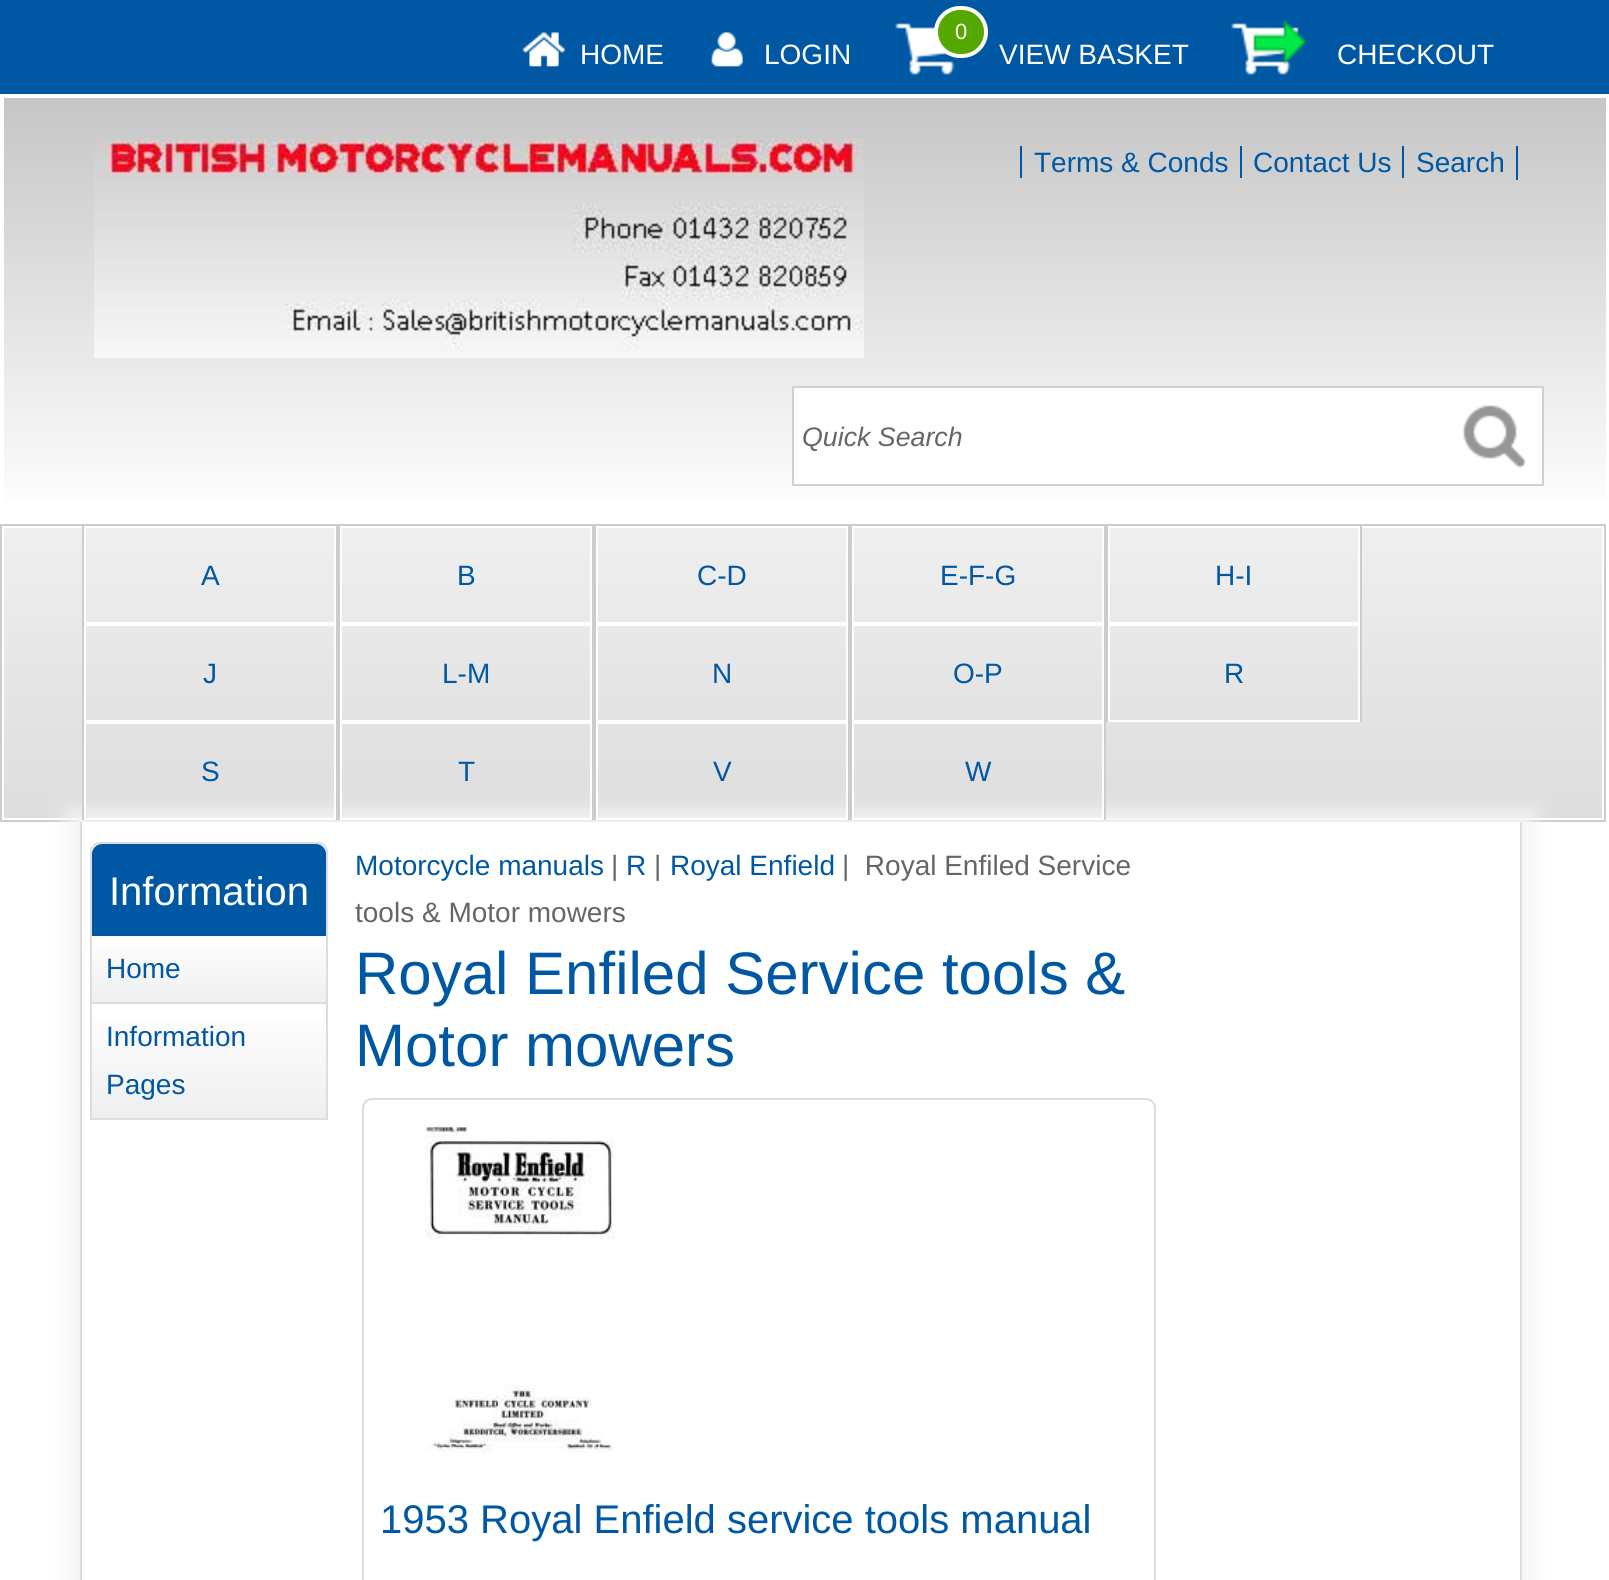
import math
import cairocffi as cairo

surface = cairo.ImageSurface(cairo.FORMAT_RGB24, 1609, 1580)
ctx = cairo.Context(surface)
options = cairo.FontOptions()
options.set_hint_metrics(cairo.HINT_METRICS_OFF)
options.set_hint_style(cairo.HINT_STYLE_NONE)
ctx.set_font_options(options)
ctx.set_miter_limit(4)


def rgb(r, g, b):
    ctx.set_source_rgb(r / 255, g / 255, b / 255)


def face(family, size, italic, bold):
    ctx.select_font_face(family, cairo.FONT_SLANT_ITALIC if italic else cairo.FONT_SLANT_NORMAL, cairo.FONT_WEIGHT_BOLD if bold else cairo.FONT_WEIGHT_NORMAL)
    ctx.set_font_size(size)


def label(x, y, s):
    ctx.move_to(x, y)
    ctx.show_text(s)


def rect(x, y, w, h):
    ctx.rectangle(x, y, w, h)
    ctx.fill()


def rrect(x, y, w, h, r):
    ctx.new_sub_path()
    for i, (u, v) in enumerate([(x + w - r, y + h - r), (x + r, y + h - r), (x + r, y + r), (x + w - r, y + r)]):
        ctx.arc(u, v, r, i * math.pi / 2, (i + 1) * math.pi / 2)
    ctx.close_path()


def soft_shadow(x, y, w, h, r, blur, alpha):
    ctx.push_group_with_content(cairo.CONTENT_ALPHA)
    ctx.set_operator(cairo.OPERATOR_SOURCE)
    for i in range(15, -16, -2):
        e = blur * i / 6
        if min(w, h) + 2 * e > 0:
            ctx.set_source_rgba(0, 0, 0, alpha * math.erfc((i - 1) / 8.5) / 2)
            rrect(x - e, y - e, w + 2 * e, h + 2 * e, max(0, min(r + e + blur * .6, min(w, h) / 2 + e)))
            ctx.fill()
    ctx.mask(ctx.pop_group())


def image(path, x, y, w, h):
    ctx.save()
    ctx.set_source_surface(cairo.ImageSurface.create_from_png(path), x, y)
    ctx.rectangle(x, y, w, h)
    ctx.fill()
    ctx.restore()


rgb(255, 255, 255)
ctx.paint()
gradient = cairo.LinearGradient(805, 0, 805, 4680)
gradient.add_color_stop_rgba(0.03, 0, 0.341, 0.643, 1)
gradient.add_color_stop_rgba(0.07, 1, 1, 1, 1)
gradient.add_color_stop_rgba(1, 1, 1, 1, 1)
ctx.set_source(gradient)
rect(0, 0, 1609, 326)
image('image0.png', 522, 32, 44, 35)
face('Liberation Sans', 28, 0, 0)
rgb(255, 255, 255)
label(580, 64, 'HOME')
image('image1.png', 711, 32, 32, 35)
label(764, 64, 'LOGIN')
image('image2.png', 895, 23, 60, 52)
rgb(84, 168, 0)
rrect(936, 8, 50, 48, 24)
ctx.fill_preserve()
rgb(255, 255, 255)
ctx.set_line_width(4)
ctx.stroke()
face('Liberation Sans', 22, 0, 0)
label(955, 39, '0')
face('Liberation Sans', 28, 0, 0)
label(999, 64, 'VIEW BASKET')
image('image3.png', 1231, 20, 76, 55)
label(1337, 64, 'CHECKOUT')
gradient = cairo.LinearGradient(805, 98, 805, 520)
gradient.add_color_stop_rgba(0, 0.776, 0.776, 0.776, 1)
gradient.add_color_stop_rgba(1, 1, 1, 1, 1)
ctx.set_source(gradient)
rect(4, 98, 1602, 403)
ctx.rectangle(2, 96, 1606, 426)
rgb(255, 255, 255)
ctx.stroke()
image('image4.png', 94, 138, 770, 220)
rgb(0, 87, 164)
rect(1516, 146, 2, 34)
label(1034, 172, 'Terms & Conds')
rect(1020, 146, 2, 32)
label(1253, 172, 'Contact Us')
rect(1240, 146, 2, 32)
label(1416, 172, 'Search')
rect(1402, 146, 2, 32)
rgb(255, 255, 255)
ctx.rectangle(793, 387, 750, 98)
ctx.fill_preserve()
rgb(208, 208, 208)
ctx.set_line_width(2)
ctx.stroke()
face('Liberation Sans', 26.75, 1, 0)
rgb(102, 102, 102)
label(802, 446, 'Quick Search')
image('image5.png', 1463, 405, 63, 63)
rrect(1459, 401, 68, 68, 9)
rgb(255, 255, 255)
ctx.stroke()
gradient = cairo.LinearGradient(803, 526, 803, 820)
gradient.add_color_stop_rgba(0, 0.937, 0.937, 0.937, 1)
gradient.add_color_stop_rgba(1, 0.867, 0.867, 0.867, 1)
ctx.set_source(gradient)
rect(4, 528, 1598, 290)
ctx.rectangle(1, 525, 1604, 296)
rgb(204, 204, 204)
ctx.stroke()
ctx.rectangle(85, 527, 250, 96)
rgb(255, 255, 255)
ctx.stroke()
rgb(204, 204, 204)
rect(336, 526, 4, 98)
ctx.save()
ctx.set_fill_rule(cairo.FILL_RULE_EVEN_ODD)
ctx.new_path()
ctx.move_to(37, 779)
ctx.line_to(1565, 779)
ctx.line_to(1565, 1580)
ctx.line_to(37, 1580)
ctx.close_path()
ctx.move_to(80, 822)
ctx.line_to(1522, 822)
ctx.line_to(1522, 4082)
ctx.line_to(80, 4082)
ctx.close_path()
ctx.clip()
rgb(244, 244, 244)
soft_shadow(68, 810, 1466, 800, 0, 10, 1)
ctx.restore()
rect(82, 526, 2, 294)
face('Liberation Sans', 28, 0, 0)
rgb(0, 87, 164)
label(201, 585, 'A')
ctx.rectangle(341, 527, 250, 96)
rgb(255, 255, 255)
ctx.stroke()
rgb(204, 204, 204)
rect(592, 526, 4, 98)
rgb(0, 87, 164)
label(457, 585, 'B')
ctx.rectangle(597, 527, 250, 96)
rgb(255, 255, 255)
ctx.stroke()
rgb(204, 204, 204)
rect(848, 526, 4, 98)
rgb(0, 87, 164)
label(697, 585, 'C-D')
ctx.rectangle(853, 527, 250, 96)
rgb(255, 255, 255)
ctx.stroke()
rgb(204, 204, 204)
rect(1104, 526, 4, 98)
rgb(0, 87, 164)
label(940, 585, 'E-F-G')
ctx.rectangle(1109, 527, 250, 96)
rgb(255, 255, 255)
ctx.stroke()
rgb(204, 204, 204)
rect(1360, 526, 2, 196)
rgb(0, 87, 164)
label(1215, 585, 'H-I')
ctx.rectangle(85, 625, 250, 96)
rgb(255, 255, 255)
ctx.stroke()
rgb(204, 204, 204)
rect(336, 624, 4, 98)
rgb(0, 87, 164)
label(203, 683, 'J')
ctx.rectangle(341, 625, 250, 96)
rgb(255, 255, 255)
ctx.stroke()
rgb(204, 204, 204)
rect(592, 624, 4, 98)
rgb(0, 87, 164)
label(442, 683, 'L-M')
ctx.rectangle(597, 625, 250, 96)
rgb(255, 255, 255)
ctx.stroke()
rgb(204, 204, 204)
rect(848, 624, 4, 98)
rgb(0, 87, 164)
label(712, 683, 'N')
ctx.rectangle(853, 625, 250, 96)
rgb(255, 255, 255)
ctx.stroke()
rgb(204, 204, 204)
rect(1104, 624, 4, 98)
rgb(0, 87, 164)
label(953, 683, 'O-P')
ctx.rectangle(1109, 625, 250, 96)
rgb(255, 255, 255)
ctx.stroke()
rgb(0, 87, 164)
label(1224, 683, 'R')
ctx.rectangle(85, 723, 250, 96)
rgb(255, 255, 255)
ctx.stroke()
rgb(204, 204, 204)
rect(336, 722, 4, 98)
rgb(0, 87, 164)
label(201, 781, 'S')
ctx.rectangle(341, 723, 250, 96)
rgb(255, 255, 255)
ctx.stroke()
rgb(204, 204, 204)
rect(592, 722, 4, 98)
rgb(0, 87, 164)
label(458, 781, 'T')
ctx.rectangle(597, 723, 250, 96)
rgb(255, 255, 255)
ctx.stroke()
rgb(204, 204, 204)
rect(848, 722, 4, 98)
rgb(0, 87, 164)
label(713, 781, 'V')
ctx.rectangle(853, 723, 250, 96)
rgb(255, 255, 255)
ctx.stroke()
rgb(204, 204, 204)
rect(1104, 722, 2, 98)
rgb(0, 87, 164)
label(965, 781, 'W')
rgb(221, 221, 221)
rect(1520, 822, 2, 758)
rect(80, 822, 2, 758)
ctx.new_path()
ctx.move_to(100, 843)
ctx.line_to(318, 843)
ctx.curve_to(323, 843, 327, 847, 327, 852)
ctx.line_to(327, 1119)
ctx.line_to(91, 1119)
ctx.line_to(91, 852)
ctx.curve_to(91, 847, 95, 843, 100, 843)
ctx.close_path()
ctx.stroke()
rgb(0, 87, 164)
ctx.new_path()
ctx.move_to(102, 844)
ctx.line_to(316, 844)
ctx.curve_to(321.5, 844, 326, 848.5, 326, 854)
ctx.line_to(326, 936)
ctx.line_to(92, 936)
ctx.line_to(92, 854)
ctx.curve_to(92, 848.5, 96.5, 844, 102, 844)
ctx.close_path()
ctx.fill()
face('Liberation Sans', 40, 0, 0)
rgb(255, 255, 255)
label(109, 905, 'Information')
gradient = cairo.LinearGradient(209, 936, 209, 1002)
gradient.add_color_stop_rgba(0, 1, 1, 1, 1)
gradient.add_color_stop_rgba(1, 0.937, 0.937, 0.937, 1)
ctx.set_source(gradient)
rect(92, 946, 234, 56)
rgb(221, 221, 221)
rect(92, 1002, 234, 2)
face('Liberation Sans', 28, 0, 0)
rgb(0, 87, 164)
label(106, 978, 'Home')
gradient = cairo.LinearGradient(209, 1004, 209, 1118)
gradient.add_color_stop_rgba(0, 1, 1, 1, 1)
gradient.add_color_stop_rgba(1, 0.937, 0.937, 0.937, 1)
ctx.set_source(gradient)
rect(92, 1022, 234, 96)
rgb(0, 87, 164)
label(106, 1046, 'Information')
label(106, 1094, 'Pages')
label(355, 875, 'Motorcycle manuals')
rgb(102, 102, 102)
label(611, 875, '|')
rgb(0, 87, 164)
label(626, 875, 'R')
rgb(102, 102, 102)
label(654, 875, '|')
rgb(0, 87, 164)
label(670, 875, 'Royal Enfield')
rgb(102, 102, 102)
label(842, 875, '|  Royal Enfiled Service')
label(355, 922, 'tools & Motor mowers')
face('Liberation Sans', 60, 0, 0)
rgb(0, 87, 164)
label(355, 994, 'Royal Enfiled Service tools &')
label(355, 1066, 'Motor mowers')
rrect(363, 1099, 792, 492, 9)
rgb(221, 221, 221)
ctx.stroke()
image('image6.png', 425, 1125, 190, 328)
face('Liberation Sans', 40, 0, 0)
rgb(0, 87, 164)
label(380, 1533, '1953 Royal Enfield service tools manual')
surface.write_to_png('render.png')
